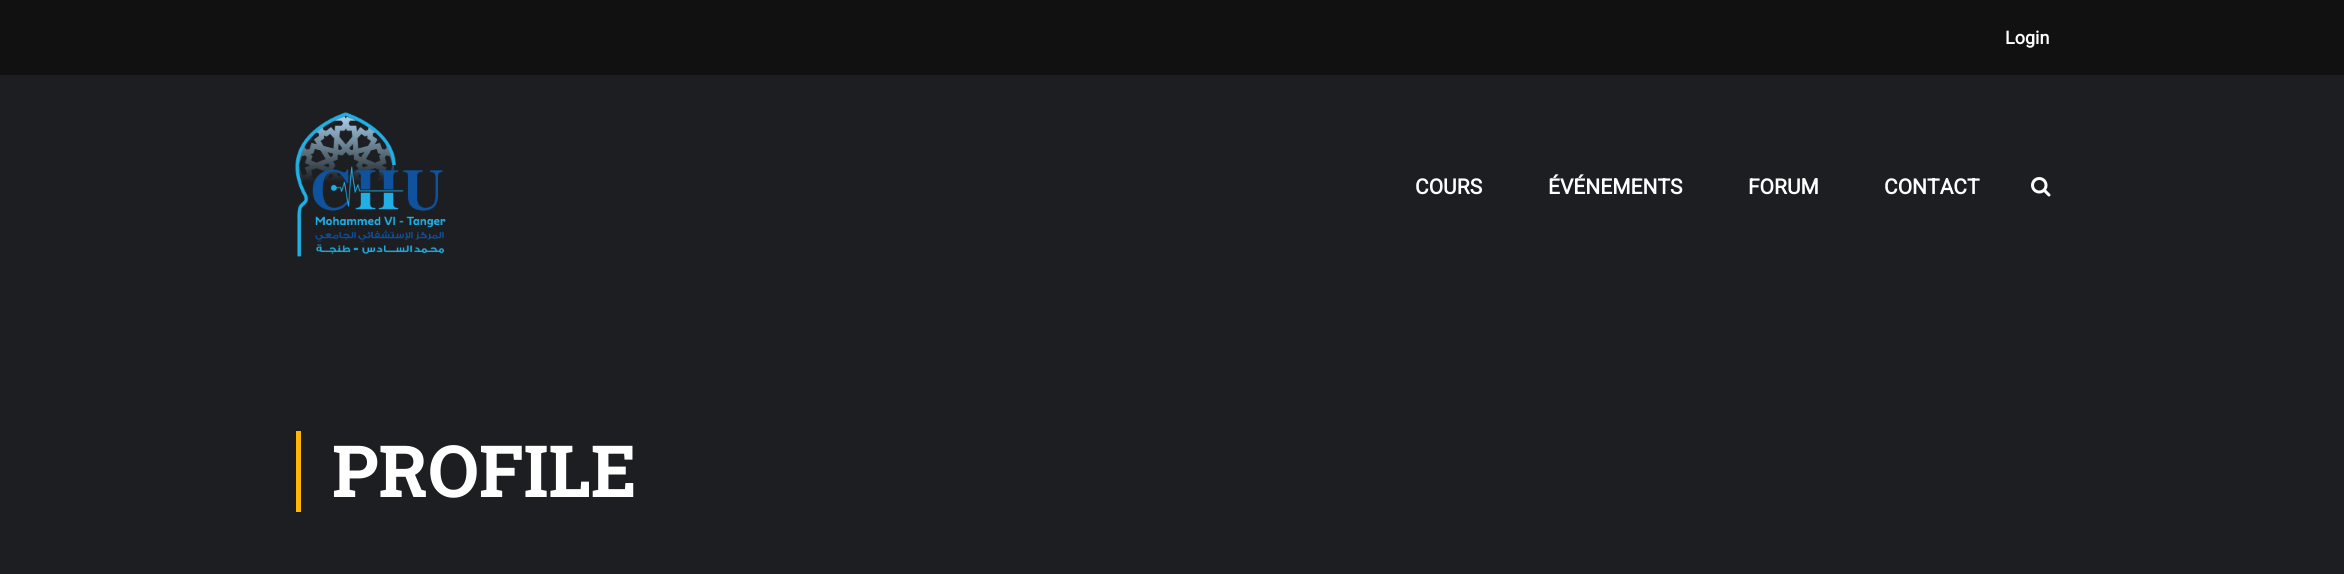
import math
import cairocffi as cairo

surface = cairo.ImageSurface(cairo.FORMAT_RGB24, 2344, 574)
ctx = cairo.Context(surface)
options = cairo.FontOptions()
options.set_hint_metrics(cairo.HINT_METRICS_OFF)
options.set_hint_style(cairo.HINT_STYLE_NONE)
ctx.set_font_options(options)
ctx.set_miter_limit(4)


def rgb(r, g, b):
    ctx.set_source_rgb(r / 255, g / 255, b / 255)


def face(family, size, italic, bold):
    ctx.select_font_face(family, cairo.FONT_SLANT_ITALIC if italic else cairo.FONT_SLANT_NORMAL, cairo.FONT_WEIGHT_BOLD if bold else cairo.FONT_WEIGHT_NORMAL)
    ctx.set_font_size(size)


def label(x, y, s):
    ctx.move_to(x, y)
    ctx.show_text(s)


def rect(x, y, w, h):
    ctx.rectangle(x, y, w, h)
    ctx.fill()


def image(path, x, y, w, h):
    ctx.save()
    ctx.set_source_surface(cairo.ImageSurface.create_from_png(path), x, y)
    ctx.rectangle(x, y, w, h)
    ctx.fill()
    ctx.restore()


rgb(28, 30, 33)
ctx.paint()
rgb(17, 17, 17)
rect(0, 0, 2344, 75)
face('Roboto', 18, 0, 1)
rgb(255, 255, 255)
label(2005, 44, 'Login')
image('image0.png', 295, 112, 151, 145)
face('Roboto', 21, 0, 1)
label(1415, 194, 'COURS')
label(1548, 194, 'ÉVÉNEMENTS')
label(1748, 194, 'FORUM')
label(1884, 194, 'CONTACT')
image('image1.png', 2031, 177, 20, 20)
rgb(255, 182, 6)
rect(296, 431, 5, 81)
face('Roboto Slab', 72, 0, 1)
rgb(255, 255, 255)
label(332, 497, 'PROFILE')
surface.write_to_png('render.png')
